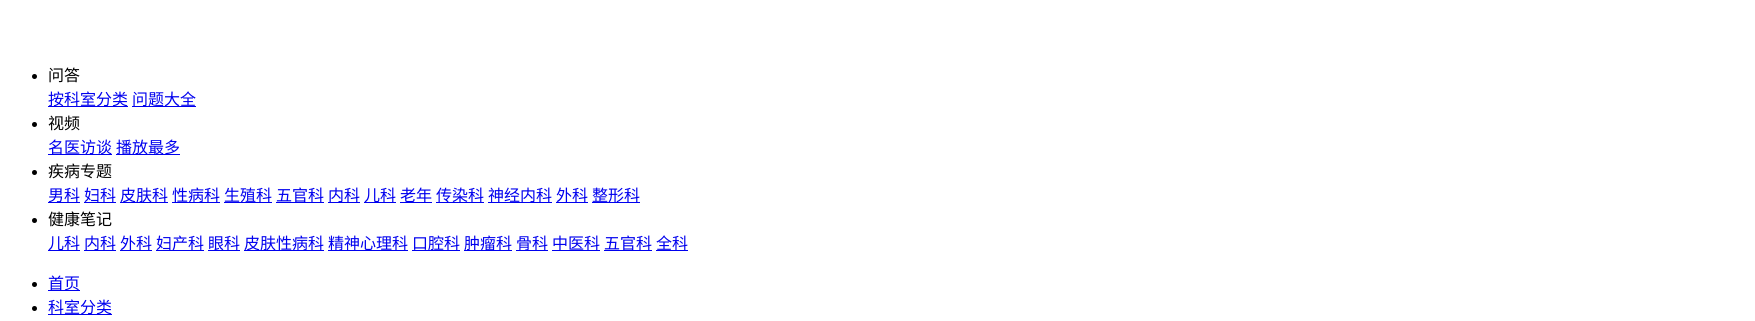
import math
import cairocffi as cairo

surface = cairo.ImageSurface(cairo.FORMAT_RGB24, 1755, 321)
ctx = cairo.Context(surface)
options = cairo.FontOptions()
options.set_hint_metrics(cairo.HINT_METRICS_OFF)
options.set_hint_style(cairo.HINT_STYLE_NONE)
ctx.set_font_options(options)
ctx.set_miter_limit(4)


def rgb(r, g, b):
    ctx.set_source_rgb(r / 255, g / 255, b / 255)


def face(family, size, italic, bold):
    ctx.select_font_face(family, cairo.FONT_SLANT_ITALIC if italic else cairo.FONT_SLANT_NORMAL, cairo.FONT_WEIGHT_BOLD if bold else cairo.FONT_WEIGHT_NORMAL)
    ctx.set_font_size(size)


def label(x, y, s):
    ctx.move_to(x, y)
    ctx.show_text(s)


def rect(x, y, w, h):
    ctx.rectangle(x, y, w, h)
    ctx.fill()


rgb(255, 255, 255)
ctx.paint()
rgb(0, 0, 0)
ctx.arc(34.5, 76.5, 2.5, 0, 2 * math.pi)
ctx.fill()
face('Noto Sans CJK SC', 16, 0, 0)
label(48, 81, '问答')
rgb(0, 0, 238)
rect(48, 106, 80, 1)
label(48, 105, '按科室分类')
rect(132, 106, 64, 1)
label(132, 105, '问题大全')
rgb(0, 0, 0)
ctx.new_path()
ctx.arc(34.5, 124.5, 2.5, 0, 2 * math.pi)
ctx.fill()
label(48, 129, '视频')
rgb(0, 0, 238)
rect(48, 154, 64, 1)
label(48, 153, '名医访谈')
rect(116, 154, 64, 1)
label(116, 153, '播放最多')
rgb(0, 0, 0)
ctx.new_path()
ctx.arc(34.5, 172.5, 2.5, 0, 2 * math.pi)
ctx.fill()
label(48, 177, '疾病专题')
rgb(0, 0, 238)
rect(48, 202, 32, 1)
label(48, 201, '男科')
rect(84, 202, 32, 1)
label(84, 201, '妇科')
rect(120, 202, 48, 1)
label(120, 201, '皮肤科')
rect(172, 202, 48, 1)
label(172, 201, '性病科')
rect(224, 202, 48, 1)
label(224, 201, '生殖科')
rect(276, 202, 48, 1)
label(276, 201, '五官科')
rect(328, 202, 32, 1)
label(328, 201, '内科')
rect(364, 202, 32, 1)
label(364, 201, '儿科')
rect(400, 202, 32, 1)
label(400, 201, '老年')
rect(436, 202, 48, 1)
label(436, 201, '传染科')
rect(488, 202, 64, 1)
label(488, 201, '神经内科')
rect(556, 202, 32, 1)
label(556, 201, '外科')
rect(592, 202, 48, 1)
label(592, 201, '整形科')
rgb(0, 0, 0)
ctx.new_path()
ctx.arc(34.5, 220.5, 2.5, 0, 2 * math.pi)
ctx.fill()
label(48, 225, '健康笔记')
rgb(0, 0, 238)
rect(48, 250, 32, 1)
label(48, 249, '儿科')
rect(84, 250, 32, 1)
label(84, 249, '内科')
rect(120, 250, 32, 1)
label(120, 249, '外科')
rect(156, 250, 48, 1)
label(156, 249, '妇产科')
rect(208, 250, 32, 1)
label(208, 249, '眼科')
rect(244, 250, 80, 1)
label(244, 249, '皮肤性病科')
rect(328, 250, 80, 1)
label(328, 249, '精神心理科')
rect(412, 250, 48, 1)
label(412, 249, '口腔科')
rect(464, 250, 48, 1)
label(464, 249, '肿瘤科')
rect(516, 250, 32, 1)
label(516, 249, '骨科')
rect(552, 250, 48, 1)
label(552, 249, '中医科')
rect(604, 250, 48, 1)
label(604, 249, '五官科')
rect(656, 250, 32, 1)
label(656, 249, '全科')
rgb(0, 0, 0)
ctx.new_path()
ctx.arc(34.5, 284.5, 2.5, 0, 2 * math.pi)
ctx.fill()
rgb(0, 0, 238)
rect(48, 290, 32, 1)
label(48, 289, '首页')
rgb(0, 0, 0)
ctx.new_path()
ctx.arc(34.5, 308.5, 2.5, 0, 2 * math.pi)
ctx.fill()
rgb(0, 0, 238)
rect(48, 314, 64, 1)
label(48, 313, '科室分类')
surface.write_to_png('render.png')
